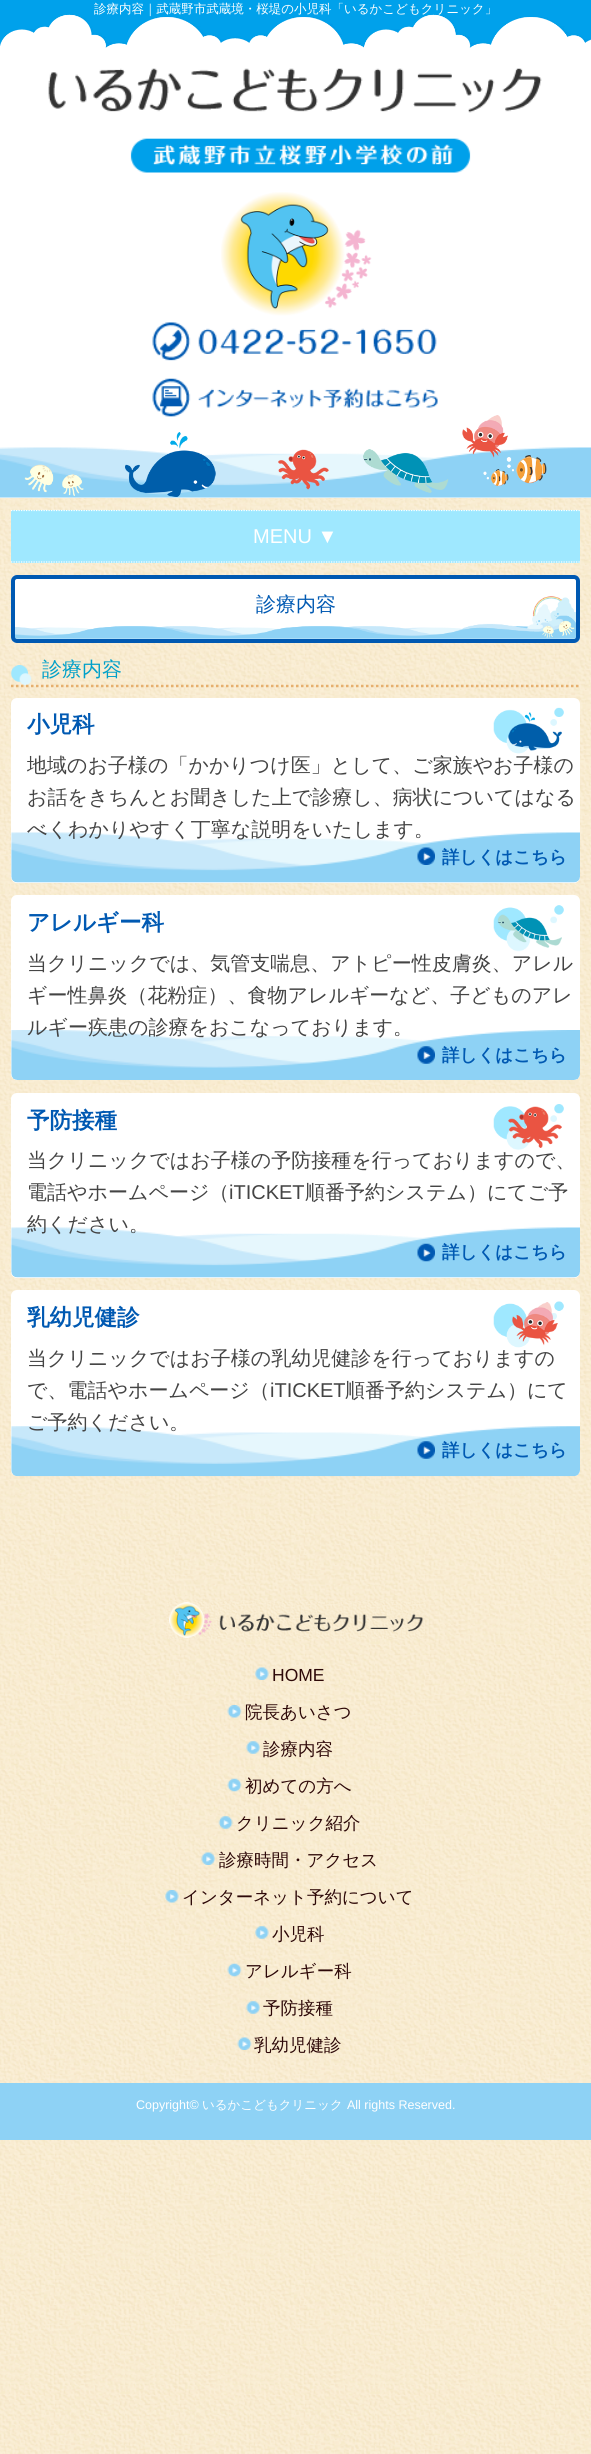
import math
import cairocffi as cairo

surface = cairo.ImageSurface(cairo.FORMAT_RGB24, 591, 2454)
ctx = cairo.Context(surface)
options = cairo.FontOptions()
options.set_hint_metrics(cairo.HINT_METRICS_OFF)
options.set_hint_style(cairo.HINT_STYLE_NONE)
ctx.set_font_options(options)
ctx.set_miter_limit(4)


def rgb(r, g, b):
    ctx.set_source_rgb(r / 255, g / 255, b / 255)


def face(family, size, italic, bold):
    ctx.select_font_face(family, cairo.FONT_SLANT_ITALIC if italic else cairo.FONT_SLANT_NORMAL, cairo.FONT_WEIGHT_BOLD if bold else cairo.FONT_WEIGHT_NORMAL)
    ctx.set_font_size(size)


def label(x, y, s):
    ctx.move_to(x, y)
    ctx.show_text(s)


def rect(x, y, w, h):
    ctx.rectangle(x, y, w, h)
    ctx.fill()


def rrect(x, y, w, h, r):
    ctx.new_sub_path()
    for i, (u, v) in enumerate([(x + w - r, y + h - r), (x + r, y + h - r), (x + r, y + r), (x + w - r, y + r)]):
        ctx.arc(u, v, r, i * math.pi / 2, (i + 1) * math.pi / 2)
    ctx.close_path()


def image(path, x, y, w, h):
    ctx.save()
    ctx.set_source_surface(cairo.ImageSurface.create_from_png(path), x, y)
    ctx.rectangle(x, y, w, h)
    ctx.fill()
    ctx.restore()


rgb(255, 255, 255)
ctx.paint()
image('image0.png', 0, 498, 591, 1956)
image('image1.png', 0, 0, 591, 50)
face('WenQuanYi Zen Hei Medium', 12.5, 0, 0)
rgb(255, 255, 255)
label(94, 13, '診療内容｜武蔵野市武蔵境・桜堤の小児科「いるかこどもクリニック」')
image('image2.png', 0, 447, 591, 51)
image('image3.png', 24, 415, 523, 82)
image('image4.png', 48, 68, 494, 105)
image('image5.png', 221, 192, 151, 124)
image('image6.png', 152, 322, 285, 39)
image('image7.png', 152, 378, 286, 39)
rgb(159, 232, 255)
rect(11, 510, 569, 53)
ctx.new_path()
ctx.move_to(11, 510.5)
ctx.line_to(580, 510.5)
rgb(255, 255, 255)
ctx.set_line_width(1.2)
ctx.set_dash([1.25, 1.25])
ctx.stroke()
ctx.new_path()
ctx.move_to(11, 562)
ctx.line_to(580, 562)
ctx.stroke()
face('Liberation Sans', 20, 0, 0)
label(253, 543, 'MENU ▼')
rrect(11, 575, 569, 68, 6)
ctx.fill()
image('image8.png', 11, 596, 565, 43)
rrect(13, 577, 565, 64, 4)
rgb(0, 89, 178)
ctx.set_line_width(4)
ctx.set_dash([])
ctx.stroke()
face('WenQuanYi Zen Hei Medium', 20, 0, 0)
label(256, 611, '診療内容')
image('image9.png', 11, 665, 21, 20)
ctx.new_path()
ctx.move_to(11, 686)
ctx.line_to(580, 686)
rgb(230, 175, 110)
ctx.set_line_width(2.5)
ctx.set_dash([2.5, 2.5])
ctx.stroke()
rgb(0, 160, 201)
label(42, 676, '診療内容')
rgb(255, 255, 255)
rrect(11, 698, 569, 185, 6)
ctx.fill()
image('image10.png', 11, 832, 569, 51)
image('image11.png', 493, 707, 71, 47)
face('WenQuanYi Zen Hei', 22.5, 0, 1)
rgb(0, 89, 178)
label(27, 732, '小児科')
face('WenQuanYi Zen Hei Medium', 20, 0, 0)
rgb(68, 68, 68)
label(27, 772, '地域のお子様の「かかりつけ医」として、ご家族やお子様の')
label(27, 804, 'お話をきちんとお聞きした上で診療し、病状についてはなる')
label(27, 836, 'べくわかりやすく丁寧な説明をいたします。')
image('image12.png', 417, 847, 18, 18)
face('WenQuanYi Zen Hei', 17.5, 0, 1)
rgb(0, 89, 178)
label(442, 863, '詳しくはこちら')
rgb(255, 255, 255)
rrect(11, 895, 569, 185, 6)
ctx.fill()
image('image13.png', 11, 1030, 569, 50)
image('image14.png', 493, 905, 71, 47)
face('WenQuanYi Zen Hei', 22.5, 0, 1)
rgb(0, 89, 178)
label(27, 930, 'アレルギー科')
face('WenQuanYi Zen Hei Medium', 20, 0, 0)
rgb(68, 68, 68)
label(27, 970, '当クリニックでは、気管支喘息、アトピー性皮膚炎、アレル')
label(27, 1002, 'ギー性鼻炎（花粉症）、食物アレルギーなど、子どものアレ')
label(27, 1034, 'ルギー疾患の診療をおこなっております。')
image('image15.png', 417, 1046, 18, 18)
face('WenQuanYi Zen Hei', 17.5, 0, 1)
rgb(0, 89, 178)
label(442, 1061, '詳しくはこちら')
rgb(255, 255, 255)
rrect(11, 1093, 569, 185, 6)
ctx.fill()
image('image16.png', 11, 1227, 569, 51)
image('image17.png', 493, 1104, 71, 46)
face('WenQuanYi Zen Hei', 22.5, 0, 1)
rgb(0, 89, 178)
label(27, 1128, '予防接種')
face('WenQuanYi Zen Hei Medium', 20, 0, 0)
rgb(68, 68, 68)
label(27, 1167, '当クリニックではお子様の予防接種を行っておりますので、')
label(27, 1199, '電話やホームページ（')
face('Liberation Sans', 20, 0, 0)
label(229, 1199, 'iTICKET')
face('WenQuanYi Zen Hei Medium', 20, 0, 0)
label(305, 1199, '順番予約システム）にてご予')
label(27, 1231, '約ください。')
image('image18.png', 417, 1243, 18, 19)
face('WenQuanYi Zen Hei', 17.5, 0, 1)
rgb(0, 89, 178)
label(442, 1258, '詳しくはこちら')
rgb(255, 255, 255)
rrect(11, 1290, 569, 186, 6)
ctx.fill()
image('image19.png', 11, 1426, 569, 51)
image('image20.png', 493, 1301, 71, 47)
face('WenQuanYi Zen Hei', 22.5, 0, 1)
rgb(0, 89, 178)
label(27, 1325, '乳幼児健診')
face('WenQuanYi Zen Hei Medium', 20, 0, 0)
rgb(68, 68, 68)
label(27, 1365, '当クリニックではお子様の乳幼児健診を行っておりますの')
label(27, 1397, 'で、電話やホームページ（')
face('Liberation Sans', 20, 0, 0)
label(270, 1397, 'iTICKET')
face('WenQuanYi Zen Hei Medium', 20, 0, 0)
label(345, 1397, '順番予約システム）にて')
label(27, 1429, 'ご予約ください。')
image('image15.png', 417, 1441, 18, 18)
face('WenQuanYi Zen Hei', 17.5, 0, 1)
rgb(0, 89, 178)
label(442, 1456, '詳しくはこちら')
image('image21.png', 166, 1601, 259, 38)
image('image22.png', 255, 1667, 14, 13)
face('Liberation Sans', 17.5, 0, 0)
rgb(45, 8, 8)
label(272, 1681, 'HOME')
image('image23.png', 227, 1705, 15, 13)
face('WenQuanYi Zen Hei Medium', 17.5, 0, 0)
label(245, 1718, '院長あいさつ')
image('image24.png', 246, 1741, 14, 13)
label(263, 1755, '診療内容')
image('image25.png', 227, 1778, 15, 14)
label(245, 1792, '初めての方へ')
image('image26.png', 218, 1816, 15, 13)
label(236, 1829, 'クリニック紹介')
image('image27.png', 201, 1852, 14, 13)
label(219, 1866, '診療時間・アクセス')
image('image28.png', 165, 1890, 14, 13)
label(182, 1903, 'インターネット予約について')
image('image29.png', 255, 1926, 14, 13)
label(272, 1940, '小児科')
image('image30.png', 227, 1963, 15, 14)
label(245, 1977, 'アレルギー科')
image('image31.png', 246, 2001, 14, 13)
label(263, 2014, '予防接種')
image('image32.png', 237, 2037, 15, 13)
label(254, 2051, '乳幼児健診')
rgb(142, 210, 245)
rect(0, 2083, 591, 57)
face('Liberation Sans', 12.5, 0, 0)
rgb(255, 255, 255)
label(136, 2109, 'Copyright©')
face('WenQuanYi Zen Hei Medium', 12.5, 0, 0)
label(202, 2109, 'いるかこどもクリニック')
face('Liberation Sans', 12.5, 0, 0)
label(347, 2109, 'All rights Reserved.')
surface.write_to_png('render.png')
